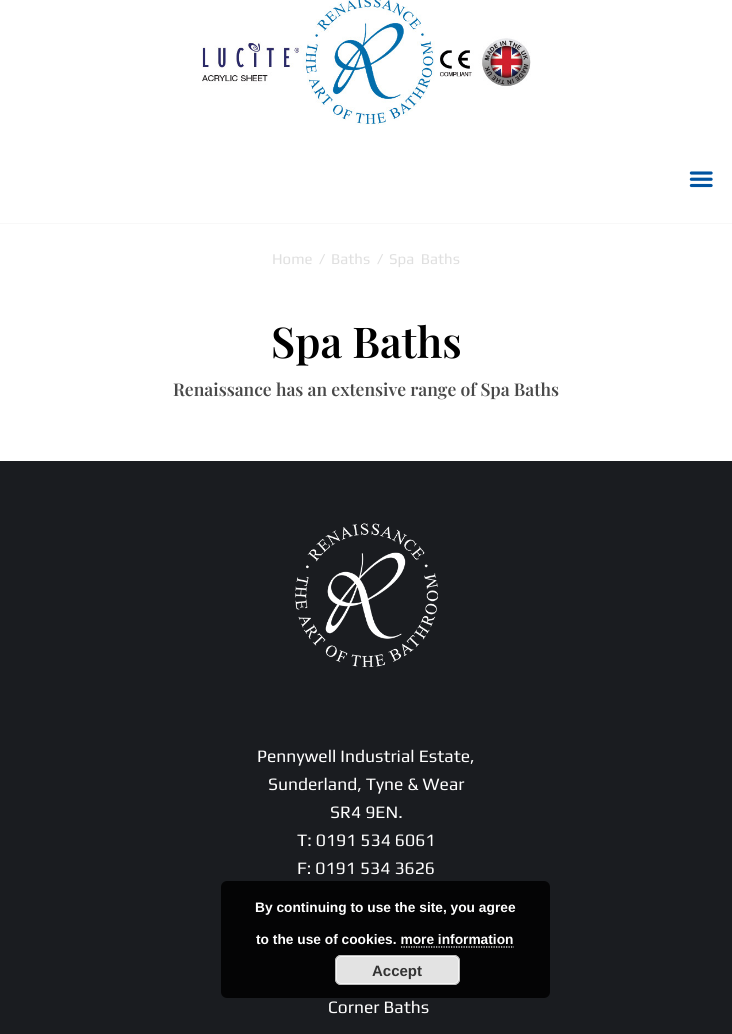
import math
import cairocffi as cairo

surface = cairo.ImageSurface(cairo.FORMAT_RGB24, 732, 1034)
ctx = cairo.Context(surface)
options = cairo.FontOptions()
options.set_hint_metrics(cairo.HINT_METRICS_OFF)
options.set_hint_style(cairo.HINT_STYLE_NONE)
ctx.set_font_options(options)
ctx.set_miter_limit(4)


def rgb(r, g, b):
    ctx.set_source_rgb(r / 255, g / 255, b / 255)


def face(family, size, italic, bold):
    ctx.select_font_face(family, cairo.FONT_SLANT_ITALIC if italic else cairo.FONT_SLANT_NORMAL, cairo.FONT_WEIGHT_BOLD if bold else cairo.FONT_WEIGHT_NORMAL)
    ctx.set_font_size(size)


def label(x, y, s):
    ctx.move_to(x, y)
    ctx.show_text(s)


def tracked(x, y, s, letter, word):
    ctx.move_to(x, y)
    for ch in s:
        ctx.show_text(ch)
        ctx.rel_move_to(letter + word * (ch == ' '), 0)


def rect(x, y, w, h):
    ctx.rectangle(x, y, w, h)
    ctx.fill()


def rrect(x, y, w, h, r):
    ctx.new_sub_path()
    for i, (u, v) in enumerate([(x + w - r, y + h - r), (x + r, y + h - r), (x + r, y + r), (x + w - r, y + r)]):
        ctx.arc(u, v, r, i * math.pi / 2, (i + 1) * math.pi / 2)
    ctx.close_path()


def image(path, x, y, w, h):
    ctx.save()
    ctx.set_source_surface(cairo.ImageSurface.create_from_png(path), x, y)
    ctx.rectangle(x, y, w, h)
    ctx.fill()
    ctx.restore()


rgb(255, 255, 255)
ctx.paint()
image('image0.png', 201, 0, 330, 125)
rgb(248, 248, 248)
rect(0, 223, 732, 1)
image('image1.png', 689, 171, 24, 17)
face('Play', 15, 0, 0)
rgb(223, 223, 223)
label(272, 264, 'Home')
label(319, 264, '/')
label(331, 264, 'Baths')
label(377, 264, '/')
tracked(389, 264, 'Spa Baths', 0, 3)
face('Playfair Display SemiBold', 42.5, 0, 0)
rgb(0, 0, 0)
label(271, 358, 'Spa Baths')
face('Playfair Display SemiBold', 17.5, 0, 0)
rgb(73, 73, 73)
label(173, 396, 'Renaissance has an extensive range of Spa Baths')
rgb(26, 28, 32)
rect(0, 461, 732, 573)
image('image2.png', 295, 523, 143, 144)
face('Play', 17.5, 0, 0)
rgb(255, 255, 255)
label(257, 762, 'Pennywell Industrial Estate,')
label(268, 790, 'Sunderland, Tyne & Wear')
label(330, 818, 'SR4 9EN.')
label(297, 846, 'T: 0191 534 6061')
label(297, 874, 'F: 0191 534 3626')
label(328, 1013, 'Corner Baths')
ctx.set_source_rgba(0, 0, 0, 0.85)
rrect(221, 881, 329, 117, 6)
ctx.fill()
face('Liberation Sans', 13.75, 0, 1)
rgb(255, 255, 255)
label(255, 912, 'By continuing to use the site, you agree')
label(256, 944, 'to the use of cookies. more information')
ctx.new_path()
ctx.move_to(401, 947)
ctx.line_to(514, 947)
ctx.set_line_width(1.2)
ctx.set_dash([1.25, 1.25])
ctx.stroke()
rgb(227, 227, 227)
rrect(335, 955, 125, 30, 6)
ctx.fill()
rrect(336.5, 956.5, 122, 27, 4.5)
rgb(246, 246, 246)
ctx.set_line_width(1)
ctx.set_dash([])
ctx.stroke()
rrect(335.5, 955.5, 124, 29, 5.5)
rgb(187, 187, 187)
ctx.stroke()
face('Liberation Sans', 15, 0, 1)
rgb(51, 51, 51)
label(372, 976, 'Accept')
surface.write_to_png('render.png')
